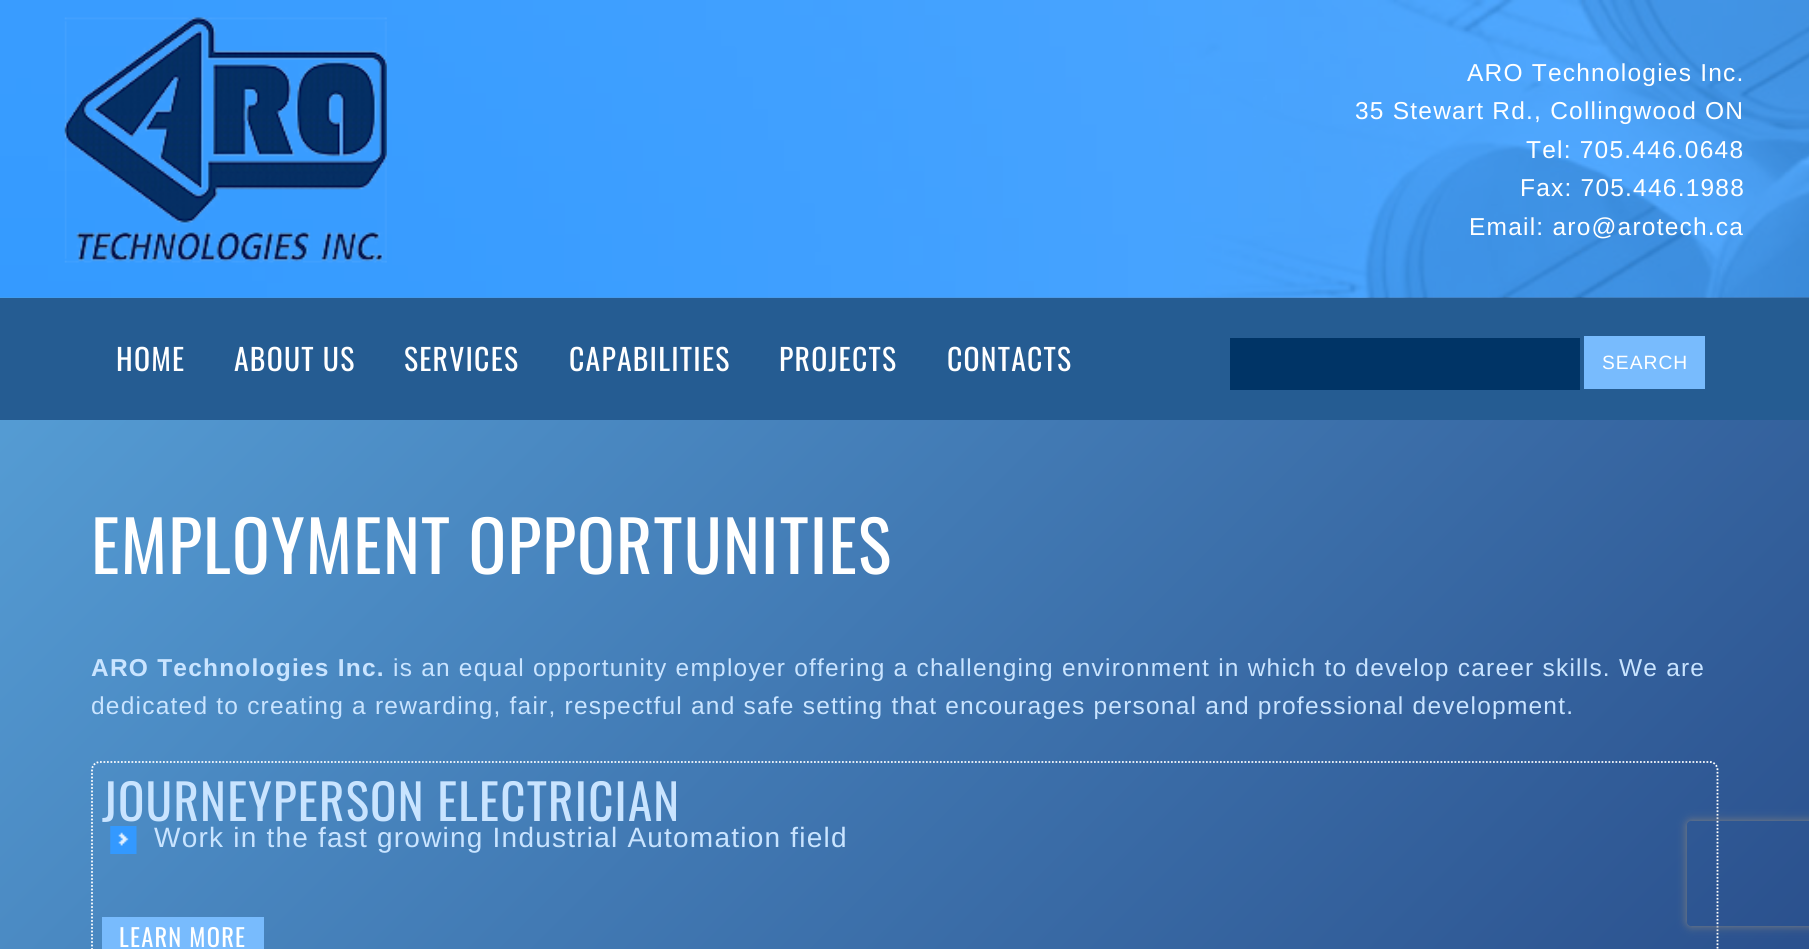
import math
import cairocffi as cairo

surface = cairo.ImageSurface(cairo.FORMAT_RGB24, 1809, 949)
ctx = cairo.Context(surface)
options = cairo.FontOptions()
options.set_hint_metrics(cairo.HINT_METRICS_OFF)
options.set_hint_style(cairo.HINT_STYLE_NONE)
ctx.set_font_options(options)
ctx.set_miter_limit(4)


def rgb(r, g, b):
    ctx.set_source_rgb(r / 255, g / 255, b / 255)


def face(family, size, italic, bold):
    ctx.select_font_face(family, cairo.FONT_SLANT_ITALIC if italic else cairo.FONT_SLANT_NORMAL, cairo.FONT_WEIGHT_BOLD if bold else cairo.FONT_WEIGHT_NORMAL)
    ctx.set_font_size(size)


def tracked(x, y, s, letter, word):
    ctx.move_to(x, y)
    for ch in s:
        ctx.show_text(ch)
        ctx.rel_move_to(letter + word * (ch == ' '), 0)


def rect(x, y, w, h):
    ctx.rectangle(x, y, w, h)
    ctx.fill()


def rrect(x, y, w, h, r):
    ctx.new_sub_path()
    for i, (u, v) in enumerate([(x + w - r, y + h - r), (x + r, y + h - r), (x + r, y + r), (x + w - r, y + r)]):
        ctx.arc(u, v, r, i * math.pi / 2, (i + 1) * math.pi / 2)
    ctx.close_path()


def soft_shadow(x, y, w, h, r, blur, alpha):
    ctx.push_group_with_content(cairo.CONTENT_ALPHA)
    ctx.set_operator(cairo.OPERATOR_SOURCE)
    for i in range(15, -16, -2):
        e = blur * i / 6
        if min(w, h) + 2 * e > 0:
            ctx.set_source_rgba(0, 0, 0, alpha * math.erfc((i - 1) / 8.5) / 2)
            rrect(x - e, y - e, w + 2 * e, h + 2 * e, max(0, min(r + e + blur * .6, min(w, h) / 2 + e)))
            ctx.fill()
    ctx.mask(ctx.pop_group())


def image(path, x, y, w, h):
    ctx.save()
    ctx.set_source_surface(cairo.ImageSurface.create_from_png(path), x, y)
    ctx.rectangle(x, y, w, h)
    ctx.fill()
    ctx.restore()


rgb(255, 255, 255)
ctx.paint()
gradient = cairo.LinearGradient(-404, 404, 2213, 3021)
gradient.add_color_stop_rgba(0, 0.361, 0.663, 0.878, 1)
gradient.add_color_stop_rgba(0.98, 0, 0.016, 0.275, 1)
gradient.add_color_stop_rgba(1, 0.745, 0.855, 0.937, 1)
ctx.set_source(gradient)
rect(0, 297, 1809, 652)
image('image0.png', 0, 0, 1809, 298)
image('image1.png', 64, 17, 323, 246)
face('Liberation Sans', 24.5, 0, 0)
rgb(255, 255, 255)
tracked(1467, 81, 'ARO Technologies Inc.', 1.22, 0)
tracked(1355, 119, '35 Stewart Rd., Collingwood ON', 1.22, 0)
tracked(1526, 158, 'Tel: 705.446.0648', 1.22, 0)
tracked(1520, 196, 'Fax: 705.446.1988', 1.22, 0)
tracked(1469, 235, 'Email: aro@arotech.ca', 1.22, 0)
rgb(37, 92, 146)
rect(0, 298, 1809, 122)
face('Oswald', 29.75, 0, 0)
rgb(255, 255, 255)
tracked(116, 371, 'HOME', 1.22, 0)
tracked(234, 371, 'ABOUT US', 1.22, 0)
tracked(404, 371, 'SERVICES', 1.22, 0)
tracked(569, 371, 'CAPABILITIES', 1.22, 0)
tracked(779, 371, 'PROJECTS', 1.22, 0)
tracked(947, 371, 'CONTACTS', 1.22, 0)
rgb(0, 52, 102)
rect(1230, 338, 350, 52)
rgb(120, 187, 253)
rect(1584, 336, 121, 53)
face('Liberation Sans', 19.25, 0, 0)
rgb(255, 255, 255)
tracked(1602, 369, 'SEARCH', 1, 0)
face('Oswald', 70, 0, 0)
tracked(91, 574, 'EMPLOYMENT OPPORTUNITIES', 1.22, 0)
face('Liberation Sans', 24.5, 0, 1)
rgb(201, 228, 255)
tracked(91, 676, 'ARO Technologies Inc.', 1.22, 0)
face('Liberation Sans', 24.5, 0, 0)
tracked(393, 676, 'is an equal opportunity employer offering a challenging environment in which to develop career skills. We are', 1.22, 0)
tracked(91, 714, 'dedicated to creating a rewarding, fair, respectful and safe setting that encourages personal and professional development.', 1.22, 0)
ctx.new_path()
ctx.move_to(100, 762)
ctx.line_to(1710, 762)
ctx.curve_to(1714, 762, 1717.5, 765.5, 1717.5, 770)
ctx.line_to(1717.5, 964)
ctx.curve_to(1717.5, 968.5, 1714, 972, 1710, 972)
ctx.line_to(100, 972)
ctx.curve_to(95.5, 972, 92, 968.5, 92, 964)
ctx.line_to(92, 770)
ctx.curve_to(92, 765.5, 95.5, 762, 100, 762)
ctx.close_path()
rgb(255, 255, 255)
ctx.set_line_width(1.8)
ctx.set_dash([1.75, 1.75])
ctx.stroke()
face('Oswald', 49, 0, 0)
rgb(201, 228, 255)
tracked(102, 821, 'JOURNEYPERSON ELECTRICIAN', 1.22, 0)
image('image2.png', 110, 826, 27, 28)
face('Liberation Sans', 28, 0, 0)
tracked(154, 847, 'Work in the fast growing Industrial Automation field', 1.22, 0)
rgb(120, 187, 253)
rect(102, 917, 162, 32)
face('Oswald', 24.5, 0, 0)
rgb(255, 255, 255)
tracked(119, 947, 'LEARN MORE', 1.22, 0)
ctx.save()
ctx.set_fill_rule(cairo.FILL_RULE_EVEN_ODD)
ctx.new_path()
ctx.move_to(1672, 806)
ctx.line_to(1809, 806)
ctx.line_to(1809, 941)
ctx.line_to(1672, 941)
ctx.close_path()
ctx.move_to(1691, 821)
ctx.line_to(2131, 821)
ctx.curve_to(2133, 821, 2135, 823, 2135, 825)
ctx.line_to(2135, 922)
ctx.curve_to(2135, 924, 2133, 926, 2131, 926)
ctx.line_to(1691, 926)
ctx.curve_to(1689, 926, 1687, 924, 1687, 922)
ctx.line_to(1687, 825)
ctx.curve_to(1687, 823, 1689, 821, 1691, 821)
ctx.close_path()
ctx.clip()
rgb(128, 128, 128)
soft_shadow(1687, 821, 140, 105, 4, 4.5, 1)
ctx.restore()
surface.write_to_png('render.png')
